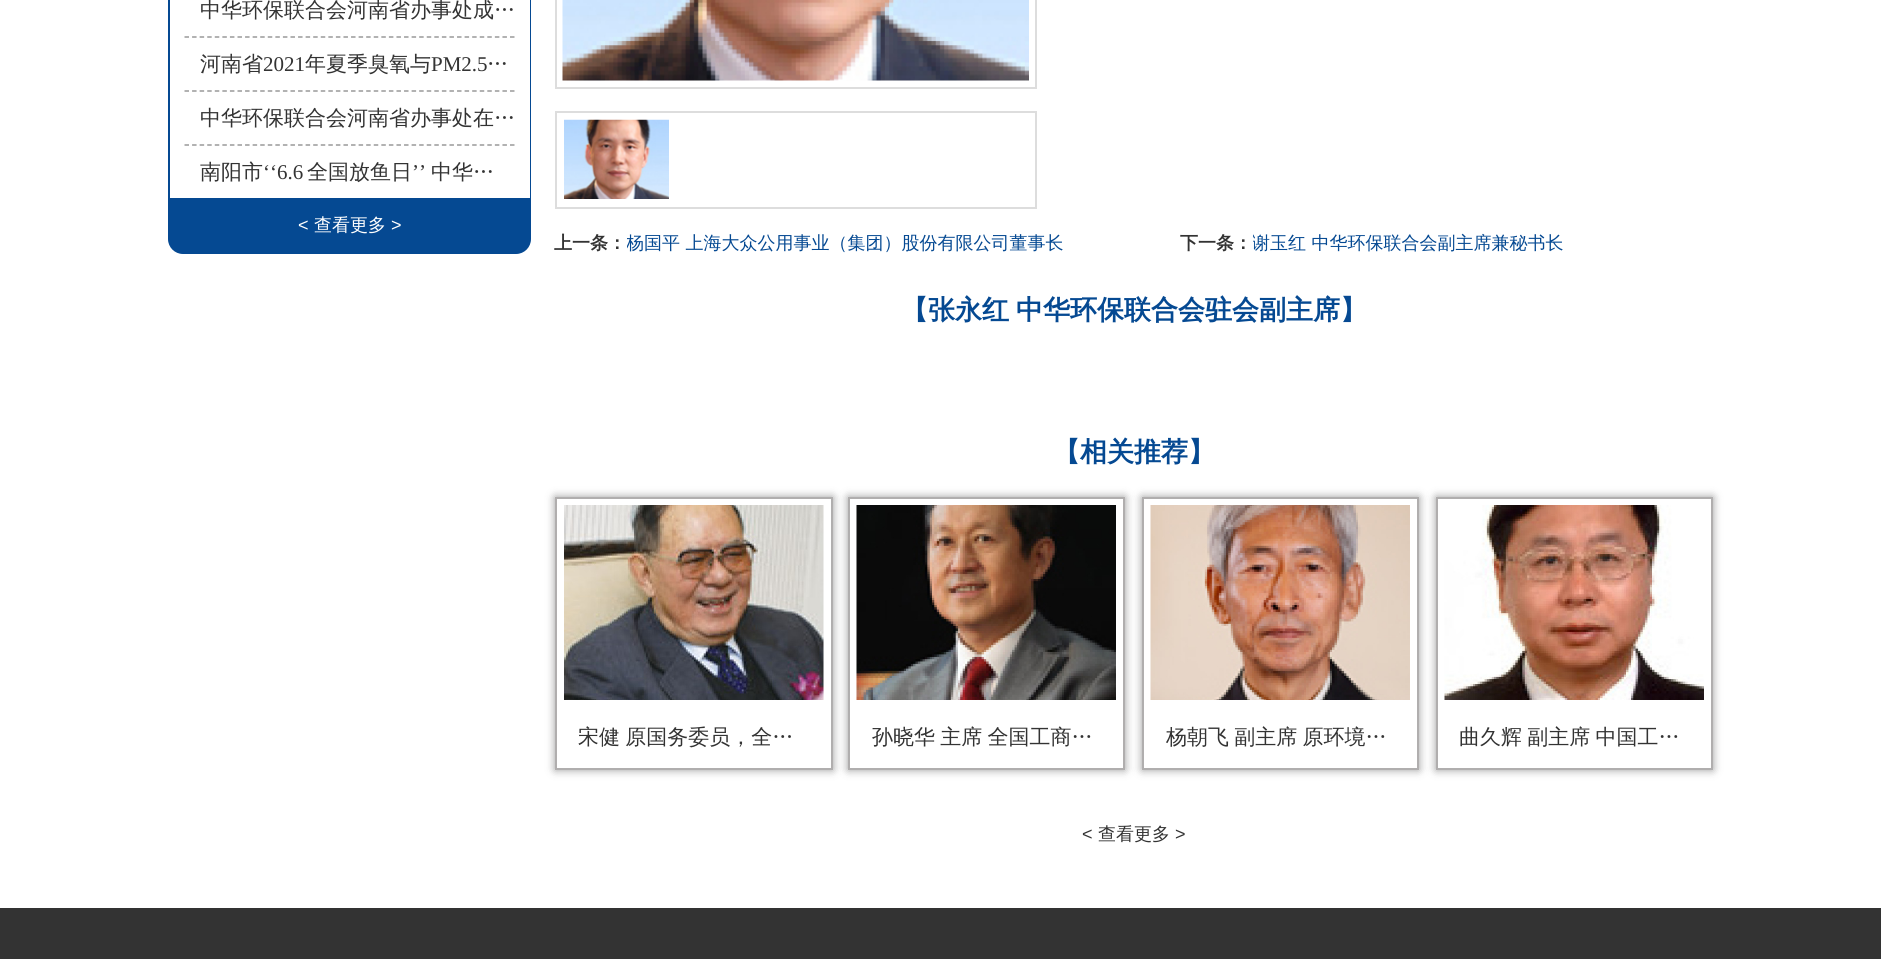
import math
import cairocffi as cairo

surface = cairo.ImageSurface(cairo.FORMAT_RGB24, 1881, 959)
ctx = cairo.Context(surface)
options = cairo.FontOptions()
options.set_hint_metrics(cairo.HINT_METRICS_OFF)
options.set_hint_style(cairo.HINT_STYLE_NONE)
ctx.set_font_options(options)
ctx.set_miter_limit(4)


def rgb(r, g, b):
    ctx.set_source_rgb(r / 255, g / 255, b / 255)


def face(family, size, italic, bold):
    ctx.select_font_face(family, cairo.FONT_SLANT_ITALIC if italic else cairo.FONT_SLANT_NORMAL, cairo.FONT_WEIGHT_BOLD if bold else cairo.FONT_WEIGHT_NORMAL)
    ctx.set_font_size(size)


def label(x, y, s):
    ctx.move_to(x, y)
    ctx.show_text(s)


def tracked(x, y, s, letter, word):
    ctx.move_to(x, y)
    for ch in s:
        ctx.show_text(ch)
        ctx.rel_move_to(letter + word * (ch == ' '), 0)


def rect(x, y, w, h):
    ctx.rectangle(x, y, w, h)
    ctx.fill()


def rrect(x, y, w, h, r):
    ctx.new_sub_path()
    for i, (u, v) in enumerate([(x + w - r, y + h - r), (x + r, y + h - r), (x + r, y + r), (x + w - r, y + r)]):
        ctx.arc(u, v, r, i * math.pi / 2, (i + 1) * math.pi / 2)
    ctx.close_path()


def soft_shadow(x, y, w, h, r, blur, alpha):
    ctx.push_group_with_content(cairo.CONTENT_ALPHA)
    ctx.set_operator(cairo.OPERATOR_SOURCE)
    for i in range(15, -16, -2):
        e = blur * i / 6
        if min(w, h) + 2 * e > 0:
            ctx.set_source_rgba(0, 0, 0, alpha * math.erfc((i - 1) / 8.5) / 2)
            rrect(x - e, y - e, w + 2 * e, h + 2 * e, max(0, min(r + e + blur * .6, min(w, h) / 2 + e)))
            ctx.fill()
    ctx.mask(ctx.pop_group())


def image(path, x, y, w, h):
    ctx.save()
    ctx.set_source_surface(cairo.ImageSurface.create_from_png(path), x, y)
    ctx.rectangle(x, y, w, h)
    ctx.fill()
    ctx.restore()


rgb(255, 255, 255)
ctx.paint()
rgb(5, 73, 146)
rrect(168, -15, 363, 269, 15)
ctx.fill()
rgb(255, 255, 255)
rect(170, 0, 360, 198)
face('WenQuanYi Zen Hei Medium', 21, 0, 0)
rgb(51, 51, 51)
tracked(200, 17, '中华环保联合会河南省办事处成…', 0, -1)
ctx.new_path()
ctx.move_to(184.5, 37)
ctx.line_to(514.5, 37)
rgb(153, 153, 153)
ctx.set_line_width(1.5)
ctx.set_dash([4.5, 3.07])
ctx.stroke()
rgb(51, 51, 51)
label(200, 71, '河南省')
face('Liberation Serif', 21, 0, 0)
label(263, 71, '2021')
face('WenQuanYi Zen Hei Medium', 21, 0, 0)
label(305, 71, '年夏季臭氧与')
face('Liberation Serif', 21, 0, 0)
label(431, 71, 'PM2.5')
face('WenQuanYi Zen Hei Medium', 21, 0, 0)
label(487, 71, '…')
ctx.new_path()
ctx.move_to(184.5, 91)
ctx.line_to(514.5, 91)
rgb(153, 153, 153)
ctx.stroke()
rgb(51, 51, 51)
label(200, 125, '中华环保联合会河南省办事处在…')
ctx.new_path()
ctx.move_to(184.5, 145)
ctx.line_to(514.5, 145)
rgb(153, 153, 153)
ctx.stroke()
rgb(51, 51, 51)
label(200, 179, '南阳市')
face('Liberation Serif', 21, 0, 0)
label(263, 179, '‘‘6.6')
face('WenQuanYi Zen Hei Medium', 21, 0, 0)
label(307, 179, '全国放鱼日')
face('Liberation Serif', 21, 0, 0)
label(412, 179, '’’')
face('WenQuanYi Zen Hei Medium', 21, 0, 0)
tracked(431, 179, '中华…', 0, -1)
face('Liberation Sans', 18, 0, 0)
rgb(255, 255, 255)
label(298, 231, '<')
face('WenQuanYi Zen Hei Medium', 18, 0, 0)
label(314, 231, '查看更多')
face('Liberation Sans', 18, 0, 0)
label(391, 231, '>')
ctx.rectangle(556, -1, 480, 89)
rgb(221, 221, 221)
ctx.set_line_width(2)
ctx.set_dash([])
ctx.stroke()
image('image0.png', 562, 0, 467, 81)
ctx.rectangle(556, 112, 480, 96)
ctx.stroke()
image('image1.png', 564, 119, 105, 80)
face('WenQuanYi Zen Hei', 18, 0, 1)
rgb(51, 51, 51)
label(554, 249, '上一条：')
ctx.save()
ctx.rectangle(627, 231, 507, 26)
ctx.clip()
face('WenQuanYi Zen Hei Medium', 18, 0, 0)
rgb(5, 73, 146)
label(626, 249, '杨国平 上海大众公用事业（集团）股份有限公司董事长')
ctx.restore()
label(1180, 249, '下一条：')
ctx.save()
ctx.rectangle(1253, 231, 460, 26)
ctx.clip()
face('WenQuanYi Zen Hei Medium', 18, 0, 0)
rgb(5, 73, 146)
label(1252, 249, '谢玉红 中华环保联合会副主席兼秘书长')
ctx.restore()
face('WenQuanYi Zen Hei', 27, 0, 1)
rgb(5, 73, 146)
tracked(901, 319, '【张永红 中华环保联合会驻会副主席】', 0, -1)
label(1053, 461, '【相关推荐】')
rgb(0, 0, 0)
soft_shadow(555, 497, 278, 273, 0, 4.5, 0.4)
rgb(255, 255, 255)
ctx.rectangle(556, 498, 276, 271)
ctx.fill_preserve()
rgb(176, 174, 174)
ctx.stroke()
image('image2.png', 564, 505, 260, 195)
face('WenQuanYi Zen Hei Medium', 21, 0, 0)
rgb(51, 51, 51)
tracked(578, 744, '宋健 原国务委员，全…', 0, -1)
rgb(0, 0, 0)
soft_shadow(848, 497, 277, 273, 0, 4.5, 0.4)
rgb(255, 255, 255)
ctx.rectangle(849, 498, 275, 271)
ctx.fill_preserve()
rgb(176, 174, 174)
ctx.stroke()
image('image3.png', 856, 505, 260, 195)
rgb(51, 51, 51)
tracked(872, 744, '孙晓华 主席 全国工商…', 0, -1)
rgb(0, 0, 0)
soft_shadow(1142, 497, 277, 273, 0, 4.5, 0.4)
rgb(255, 255, 255)
ctx.rectangle(1143, 498, 275, 271)
ctx.fill_preserve()
rgb(176, 174, 174)
ctx.stroke()
image('image4.png', 1150, 505, 260, 195)
rgb(51, 51, 51)
tracked(1166, 744, '杨朝飞 副主席 原环境…', 0, -1)
rgb(0, 0, 0)
soft_shadow(1436, 497, 277, 273, 0, 4.5, 0.4)
rgb(255, 255, 255)
ctx.rectangle(1437, 498, 275, 271)
ctx.fill_preserve()
rgb(176, 174, 174)
ctx.stroke()
image('image5.png', 1444, 505, 260, 195)
rgb(51, 51, 51)
tracked(1459, 744, '曲久辉 副主席 中国工…', 0, -1)
face('Liberation Sans', 18, 0, 0)
label(1082, 840, '<')
face('WenQuanYi Zen Hei Medium', 18, 0, 0)
label(1098, 840, '查看更多')
face('Liberation Sans', 18, 0, 0)
label(1175, 840, '>')
rect(0, 908, 1881, 51)
surface.write_to_png('render.png')
